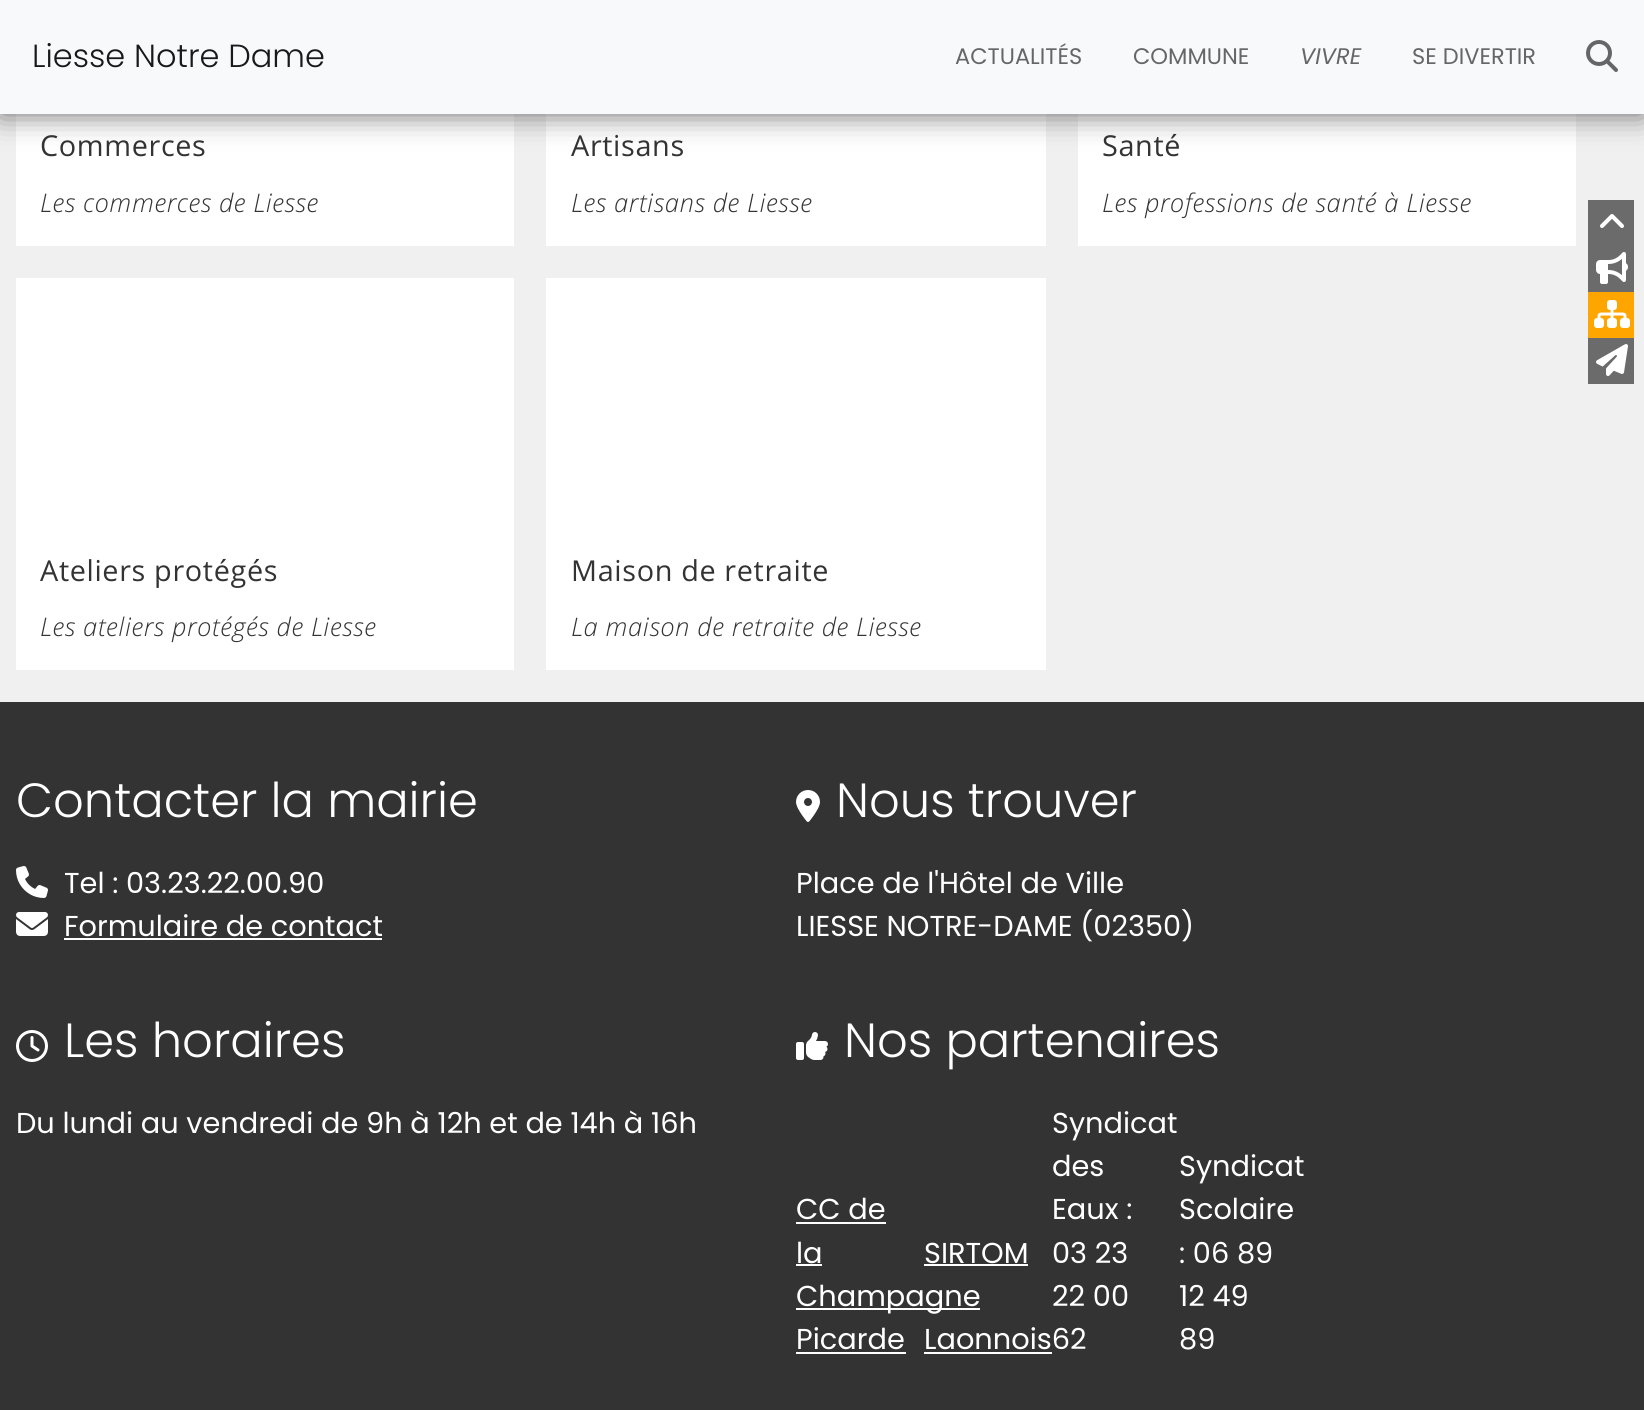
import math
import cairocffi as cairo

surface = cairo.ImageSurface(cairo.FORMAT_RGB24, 1644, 1410)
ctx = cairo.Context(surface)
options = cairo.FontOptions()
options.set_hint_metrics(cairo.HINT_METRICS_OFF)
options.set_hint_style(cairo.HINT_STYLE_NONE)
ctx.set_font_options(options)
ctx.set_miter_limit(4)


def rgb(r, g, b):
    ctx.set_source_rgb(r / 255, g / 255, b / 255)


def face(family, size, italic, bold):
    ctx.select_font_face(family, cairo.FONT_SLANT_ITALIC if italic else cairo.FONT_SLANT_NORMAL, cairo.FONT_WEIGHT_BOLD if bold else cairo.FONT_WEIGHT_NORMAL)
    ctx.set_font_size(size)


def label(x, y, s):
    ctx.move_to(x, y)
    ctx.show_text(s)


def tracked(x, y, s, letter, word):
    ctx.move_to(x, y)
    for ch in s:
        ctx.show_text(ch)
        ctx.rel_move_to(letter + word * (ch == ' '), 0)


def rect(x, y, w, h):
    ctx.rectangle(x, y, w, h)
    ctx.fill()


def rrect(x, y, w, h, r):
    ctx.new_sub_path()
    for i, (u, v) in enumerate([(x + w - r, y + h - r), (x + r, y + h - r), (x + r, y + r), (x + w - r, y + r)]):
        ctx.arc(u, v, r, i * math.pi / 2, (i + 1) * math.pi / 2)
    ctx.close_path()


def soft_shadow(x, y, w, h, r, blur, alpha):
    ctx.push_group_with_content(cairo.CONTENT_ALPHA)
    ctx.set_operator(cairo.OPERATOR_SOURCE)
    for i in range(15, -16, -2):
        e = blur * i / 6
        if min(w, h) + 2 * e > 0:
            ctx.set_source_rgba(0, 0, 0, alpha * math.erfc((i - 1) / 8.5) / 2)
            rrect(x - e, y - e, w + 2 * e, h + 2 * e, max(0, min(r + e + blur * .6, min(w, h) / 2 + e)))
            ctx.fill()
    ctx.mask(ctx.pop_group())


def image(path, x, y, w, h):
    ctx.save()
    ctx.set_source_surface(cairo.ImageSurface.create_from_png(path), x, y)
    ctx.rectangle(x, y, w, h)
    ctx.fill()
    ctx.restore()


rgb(240, 240, 240)
ctx.paint()
rgb(255, 255, 255)
rect(16, 114, 498, 132)
rect(546, 114, 500, 132)
rect(1078, 114, 498, 132)
rgb(102, 102, 102)
soft_shadow(0, 0, 1644, 114, 0, 15, 1)
rgb(248, 249, 250)
rect(0, 0, 1644, 114)
face('Poppins Light', 32, 0, 0)
rgb(25, 25, 25)
label(32, 67, 'Liesse Notre Dame')
face('Poppins', 22.5, 0, 0)
rgb(102, 102, 102)
label(955, 64, 'ACTUALITÉS')
label(1133, 64, 'COMMUNE')
face('Poppins', 22.5, 1, 0)
label(1300, 64, 'VIVRE')
face('Poppins', 22.5, 0, 0)
label(1412, 64, 'SE DIVERTIR')
image('image0.png', 1586, 40, 32, 32)
rgb(107, 107, 107)
rect(1588, 200, 46, 184)
image('image1.png', 1600, 214, 24, 14)
image('image2.png', 1596, 252, 32, 32)
rgb(255, 165, 0)
rect(1588, 292, 46, 46)
image('image3.png', 1594, 300, 36, 28)
image('image4.png', 1596, 344, 32, 32)
face('Open Sans', 28.8, 0, 0)
rgb(51, 51, 51)
tracked(40, 156, 'Commerces', 0.65, 0)
face('Open Sans Light', 25.6, 1, 0)
tracked(40, 212, 'Les commerces de Liesse', 0.65, 0)
face('Open Sans', 28.8, 0, 0)
tracked(571, 156, 'Artisans', 0.65, 0)
face('Open Sans Light', 25.6, 1, 0)
tracked(571, 212, 'Les artisans de Liesse', 0.65, 0)
face('Open Sans', 28.8, 0, 0)
tracked(1102, 156, 'Santé', 0.65, 0)
face('Open Sans Light', 25.6, 1, 0)
tracked(1102, 212, 'Les professions de santé à Liesse', 0.65, 0)
rgb(255, 255, 255)
rect(16, 278, 498, 392)
face('Open Sans', 28.8, 0, 0)
rgb(51, 51, 51)
tracked(40, 581, 'Ateliers protégés', 0.65, 0)
face('Open Sans Light', 25.6, 1, 0)
tracked(40, 636, 'Les ateliers protégés de Liesse', 0.65, 0)
rgb(255, 255, 255)
rect(546, 278, 500, 392)
face('Open Sans', 28.8, 0, 0)
rgb(51, 51, 51)
tracked(571, 581, 'Maison de retraite', 0.65, 0)
face('Open Sans Light', 25.6, 1, 0)
tracked(571, 636, 'La maison de retraite de Liesse', 0.65, 0)
rect(0, 702, 1644, 708)
face('Poppins Light', 48, 0, 0)
rgb(255, 255, 255)
label(16, 817, 'Contacter la mairie')
image('image5.png', 16, 866, 32, 32)
face('Poppins', 28.8, 0, 0)
label(64, 893, 'Tel : 03.23.22.00.90')
image('image6.png', 16, 912, 32, 24)
label(64, 936, 'Formulaire de contact')
rect(64, 938, 318, 2)
image('image7.png', 796, 790, 24, 32)
face('Poppins Light', 48, 0, 0)
label(836, 817, 'Nous trouver')
face('Poppins', 28.8, 0, 0)
label(796, 893, 'Place de l\'Hôtel de Ville')
label(796, 936, 'LIESSE NOTRE-DAME (02350)')
image('image8.png', 16, 1030, 32, 32)
face('Poppins Light', 48, 0, 0)
label(64, 1057, 'Les horaires')
face('Poppins', 28.8, 0, 0)
label(16, 1133, 'Du lundi au vendredi de 9h à 12h et de 14h à 16h')
image('image9.png', 796, 1032, 32, 28)
face('Poppins Light', 48, 0, 0)
label(844, 1057, 'Nos partenaires')
face('Poppins', 28.8, 0, 0)
label(796, 1219, 'CC de')
rect(796, 1222, 90, 2)
label(796, 1263, 'la')
rect(796, 1264, 26, 2)
rect(796, 1308, 184, 2)
label(796, 1306, 'Champagne')
label(796, 1349, 'Picarde')
rect(796, 1352, 110, 2)
label(924, 1263, 'SIRTOM')
rect(924, 1264, 104, 2)
label(924, 1349, 'Laonnois62')
rect(924, 1352, 128, 2)
label(1052, 1133, 'Syndicat')
label(1052, 1176, 'des')
label(1052, 1219, 'Eaux :')
label(1052, 1263, '03 23')
label(1052, 1306, '22 00')
label(1179, 1176, 'Syndicat')
label(1179, 1219, 'Scolaire')
label(1179, 1263, ': 06 89')
label(1179, 1306, '12 49')
label(1179, 1349, '89')
surface.write_to_png('render.png')
